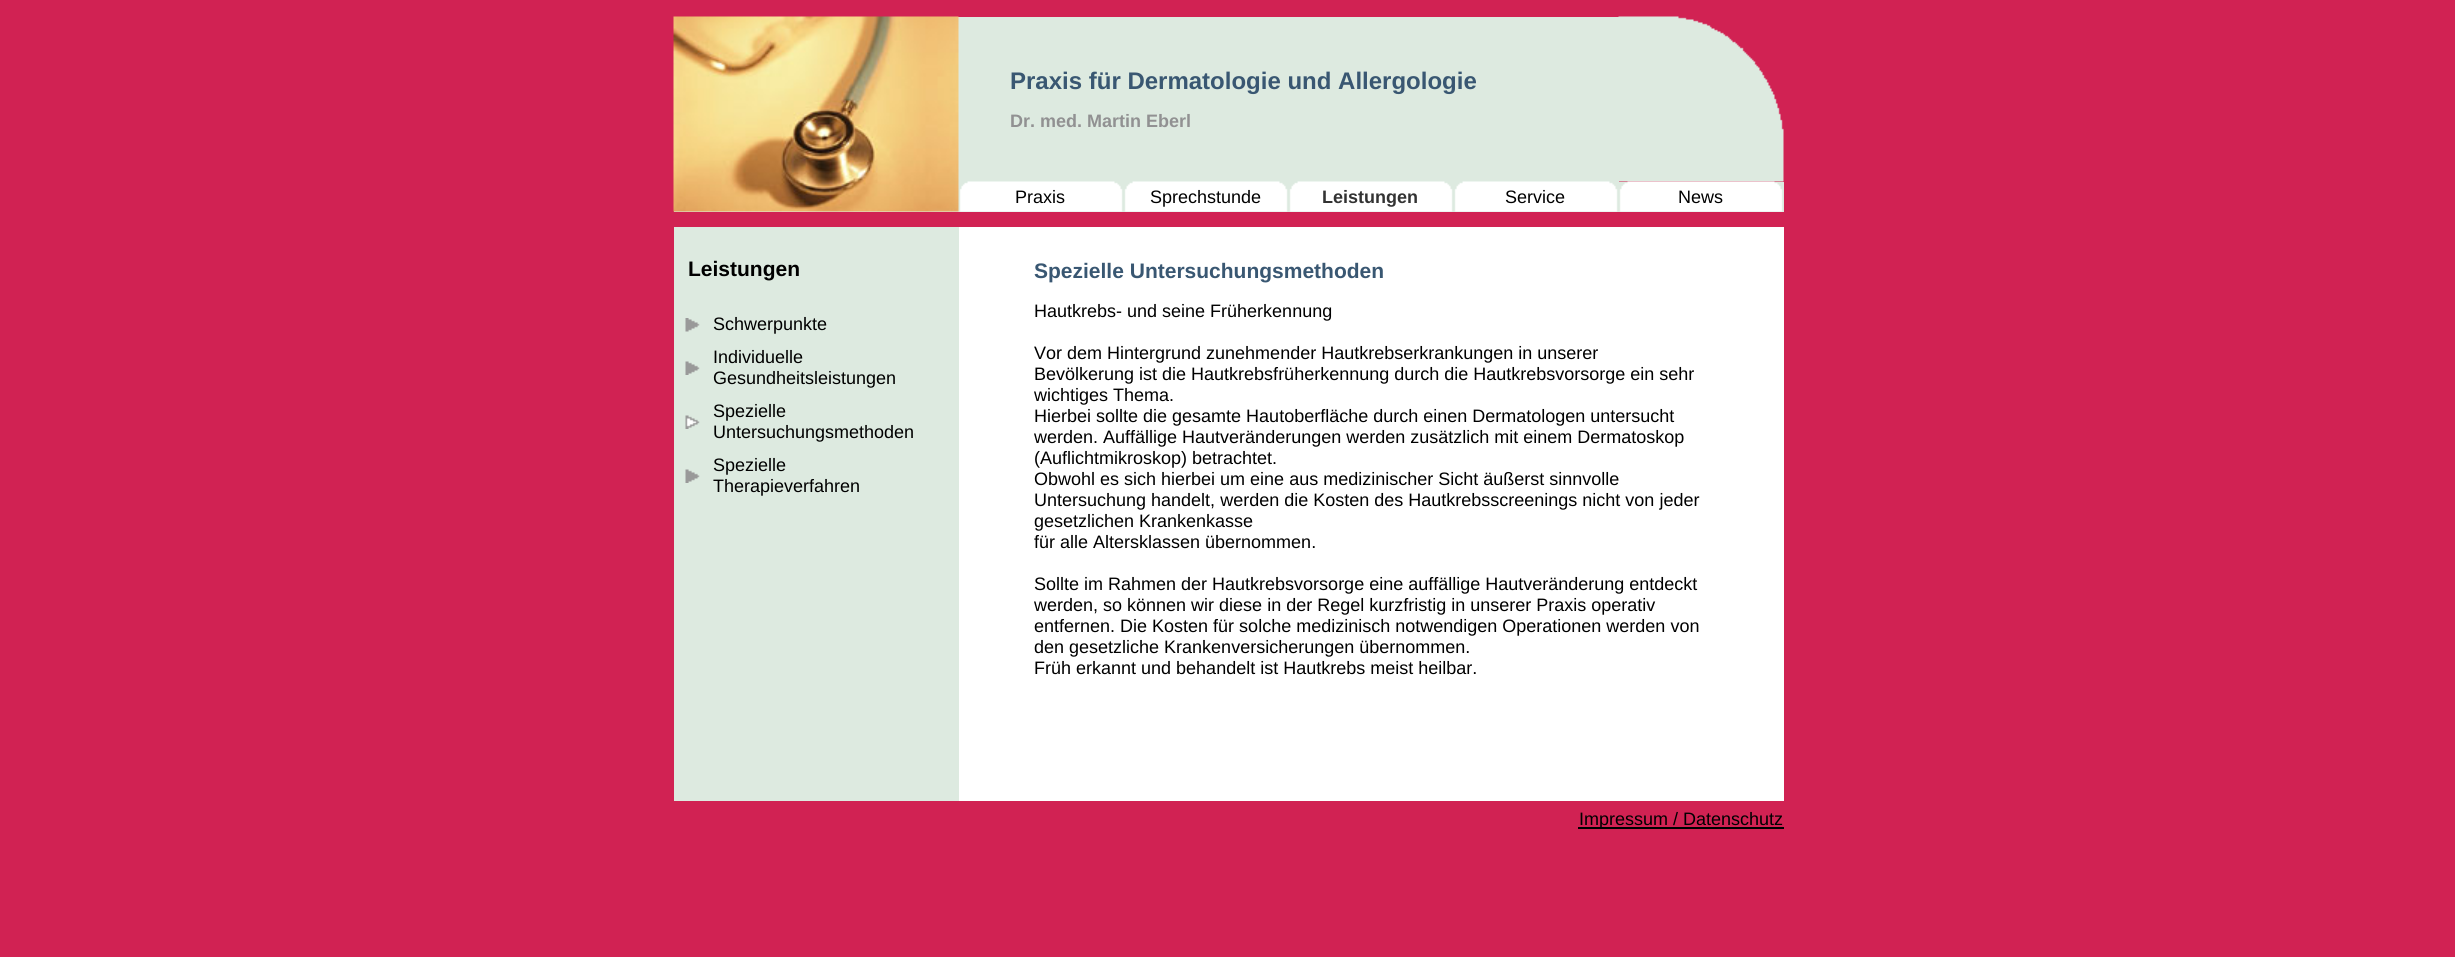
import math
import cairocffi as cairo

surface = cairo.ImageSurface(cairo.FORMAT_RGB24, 2455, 957)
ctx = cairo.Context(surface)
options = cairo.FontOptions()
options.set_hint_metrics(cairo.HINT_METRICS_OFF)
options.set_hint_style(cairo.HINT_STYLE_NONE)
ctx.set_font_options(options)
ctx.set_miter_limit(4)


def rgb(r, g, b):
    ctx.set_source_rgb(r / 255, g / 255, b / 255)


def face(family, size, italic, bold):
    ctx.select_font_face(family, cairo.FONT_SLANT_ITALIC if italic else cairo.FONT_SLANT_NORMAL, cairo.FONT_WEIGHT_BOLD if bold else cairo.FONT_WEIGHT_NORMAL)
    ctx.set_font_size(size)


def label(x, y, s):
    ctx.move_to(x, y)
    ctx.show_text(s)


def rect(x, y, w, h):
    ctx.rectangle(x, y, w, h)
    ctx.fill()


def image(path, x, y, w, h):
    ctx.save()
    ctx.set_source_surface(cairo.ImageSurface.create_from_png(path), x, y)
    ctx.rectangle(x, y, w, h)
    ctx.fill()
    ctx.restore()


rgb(209, 34, 83)
ctx.paint()
rgb(221, 234, 224)
rect(674, 17, 285, 195)
image('image0.png', 673, 16, 286, 196)
rect(959, 17, 660, 165)
face('Liberation Sans', 24, 0, 1)
rgb(57, 87, 114)
label(1010, 89, 'Praxis für Dermatologie und Allergologie')
face('Liberation Sans', 18, 0, 1)
rgb(145, 145, 146)
label(1010, 127, 'Dr. med. Martin Eberl')
image('image1.png', 1618, 16, 166, 166)
rgb(221, 234, 224)
rect(959, 182, 825, 30)
image('image2.png', 959, 181, 164, 31)
face('Liberation Sans', 18, 0, 0)
rgb(0, 0, 0)
label(1015, 203, 'Praxis')
image('image3.png', 1124, 181, 164, 31)
label(1150, 203, 'Sprechstunde')
image('image3.png', 1289, 181, 164, 31)
face('Liberation Sans', 18, 0, 1)
rgb(51, 51, 51)
label(1322, 203, 'Leistungen')
image('image3.png', 1454, 181, 164, 31)
face('Liberation Sans', 18, 0, 0)
rgb(0, 0, 0)
label(1505, 203, 'Service')
image('image4.png', 1619, 181, 164, 31)
label(1678, 203, 'News')
rgb(221, 234, 224)
rect(674, 227, 285, 574)
face('Liberation Sans', 21, 0, 1)
rgb(0, 0, 0)
label(688, 276, 'Leistungen')
image('image5.png', 685, 318, 15, 14)
face('Liberation Sans', 18, 0, 0)
label(713, 330, 'Schwerpunkte')
image('image6.png', 685, 361, 15, 14)
label(713, 363, 'Individuelle')
label(713, 384, 'Gesundheitsleistungen')
image('image7.png', 685, 415, 15, 14)
label(713, 417, 'Spezielle')
label(713, 438, 'Untersuchungsmethoden')
image('image6.png', 685, 469, 15, 14)
label(713, 471, 'Spezielle')
label(713, 492, 'Therapieverfahren')
rgb(255, 255, 255)
rect(959, 227, 825, 574)
face('Liberation Sans', 21, 0, 1)
rgb(57, 87, 114)
label(1034, 278, 'Spezielle Untersuchungsmethoden')
face('Liberation Sans', 18, 0, 0)
rgb(0, 0, 0)
label(1034, 317, 'Hautkrebs- und seine Früherkennung')
label(1034, 359, 'Vor dem Hintergrund zunehmender Hautkrebserkrankungen in unserer')
label(1034, 380, 'Bevölkerung ist die Hautkrebsfrüherkennung durch die Hautkrebsvorsorge ein sehr')
label(1034, 401, 'wichtiges Thema.')
label(1034, 422, 'Hierbei sollte die gesamte Hautoberfläche durch einen Dermatologen untersucht')
label(1034, 443, 'werden. Auffällige Hautveränderungen werden zusätzlich mit einem Dermatoskop')
label(1034, 464, '(Auflichtmikroskop) betrachtet.')
label(1034, 485, 'Obwohl es sich hierbei um eine aus medizinischer Sicht äußerst sinnvolle')
label(1034, 506, 'Untersuchung handelt, werden die Kosten des Hautkrebsscreenings nicht von jeder')
label(1034, 527, 'gesetzlichen Krankenkasse')
label(1034, 548, 'für alle Altersklassen übernommen.')
label(1034, 590, 'Sollte im Rahmen der Hautkrebsvorsorge eine auffällige Hautveränderung entdeckt')
label(1034, 611, 'werden, so können wir diese in der Regel kurzfristig in unserer Praxis operativ')
label(1034, 632, 'entfernen. Die Kosten für solche medizinisch notwendigen Operationen werden von')
label(1034, 653, 'den gesetzliche Krankenversicherungen übernommen.')
label(1034, 674, 'Früh erkannt und behandelt ist Hautkrebs meist heilbar.')
rect(1578, 827, 206, 2)
label(1579, 825, 'Impressum / Datenschutz')
surface.write_to_png('render.png')
